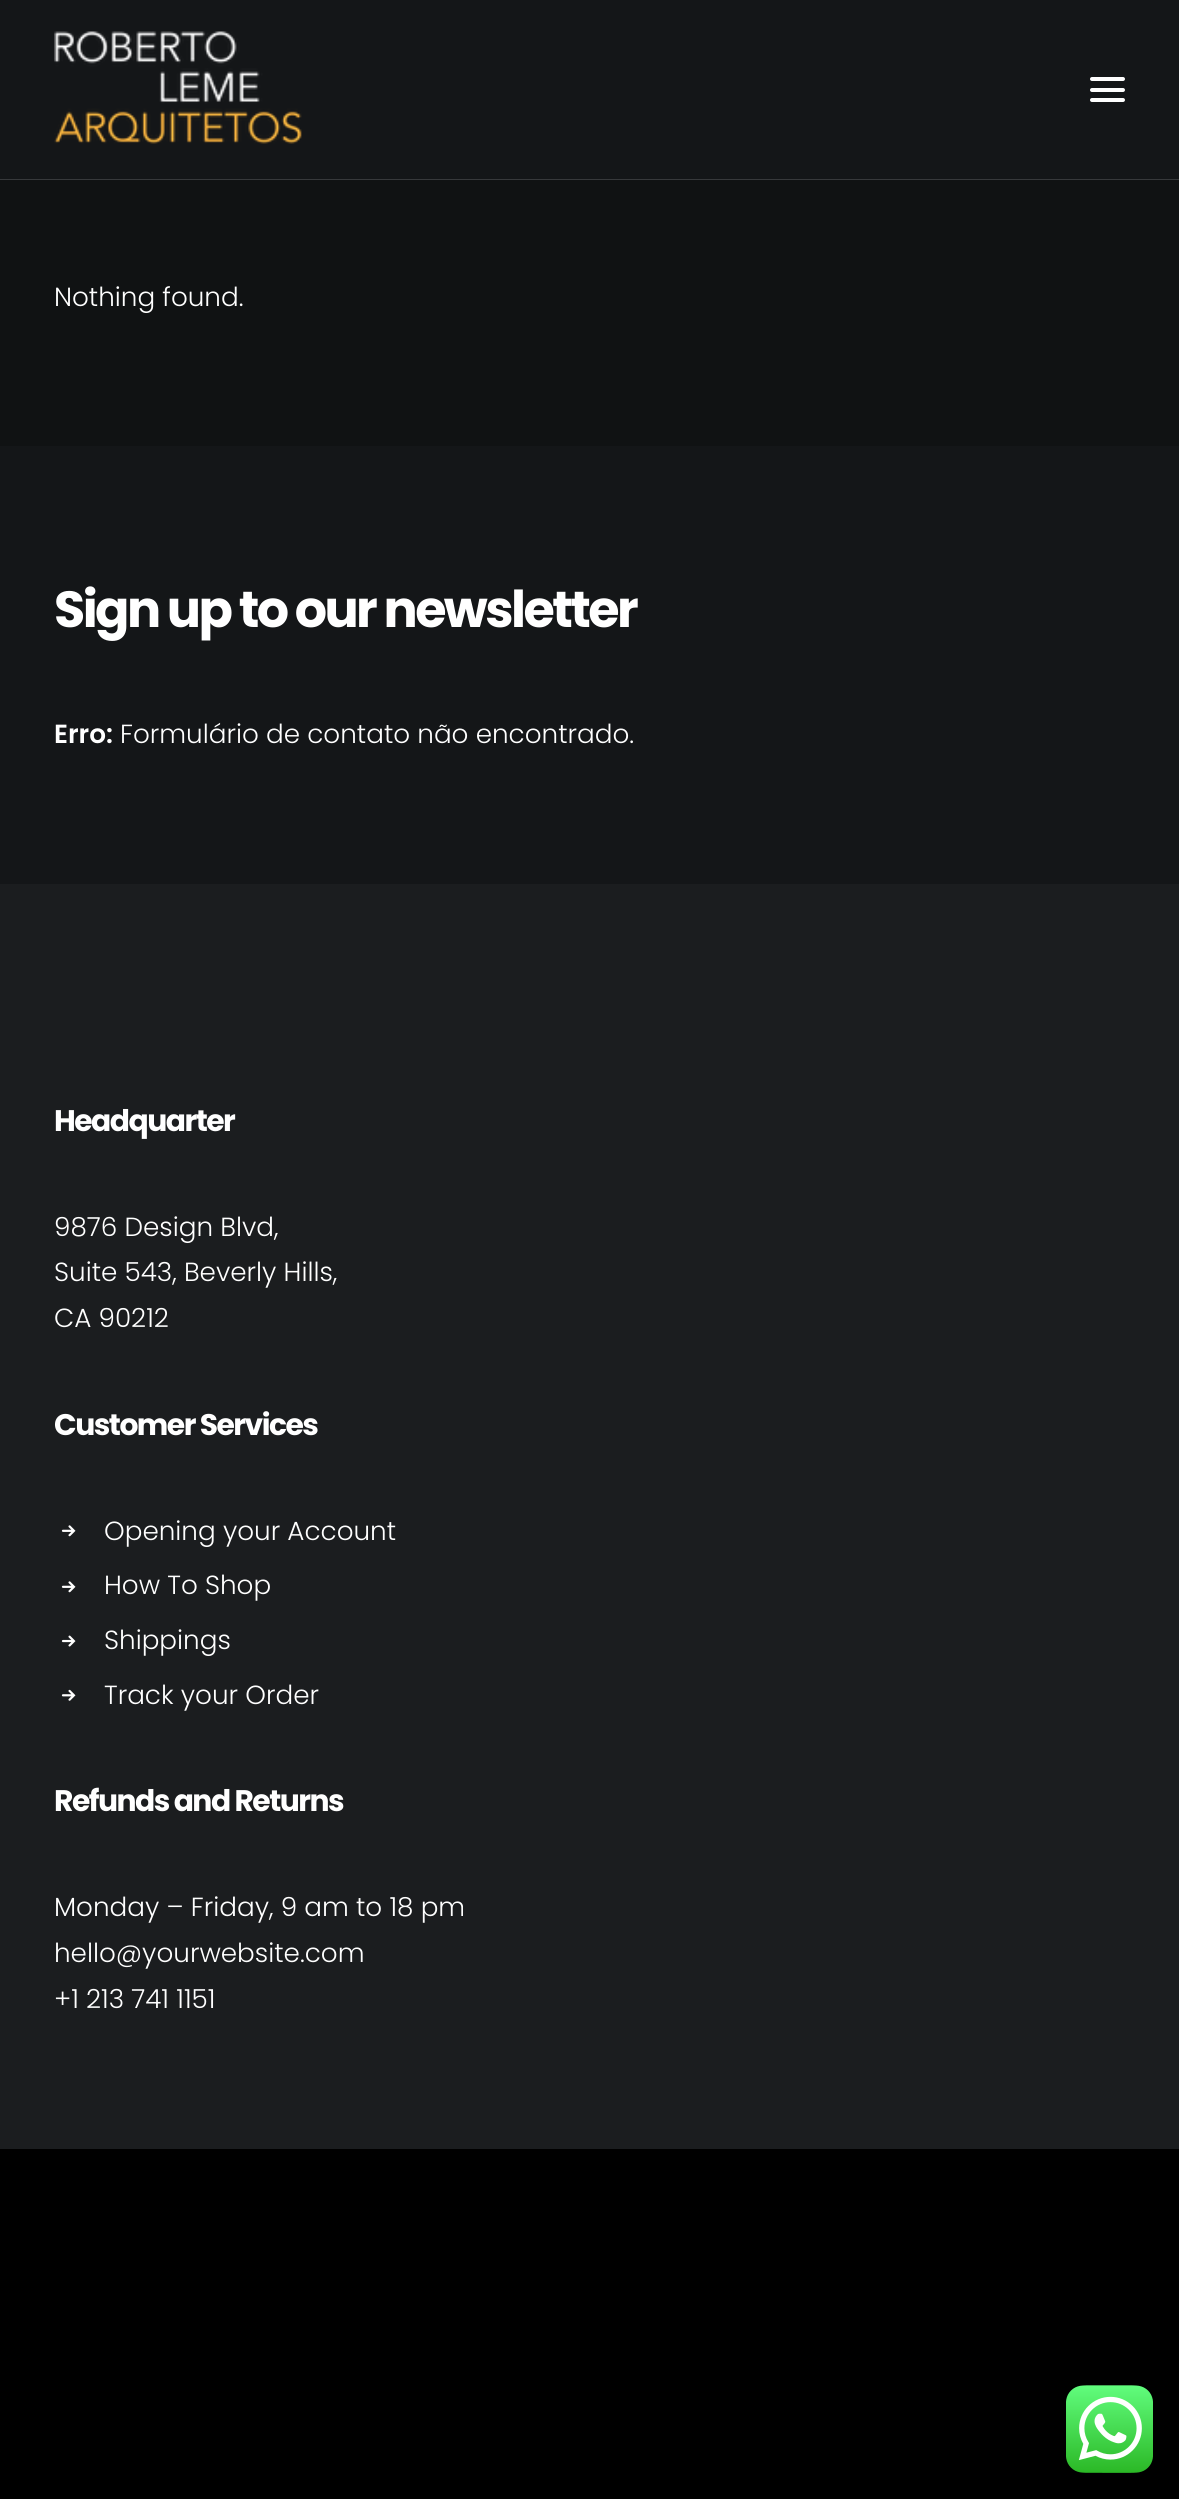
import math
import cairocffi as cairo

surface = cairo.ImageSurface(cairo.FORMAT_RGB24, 1179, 2499)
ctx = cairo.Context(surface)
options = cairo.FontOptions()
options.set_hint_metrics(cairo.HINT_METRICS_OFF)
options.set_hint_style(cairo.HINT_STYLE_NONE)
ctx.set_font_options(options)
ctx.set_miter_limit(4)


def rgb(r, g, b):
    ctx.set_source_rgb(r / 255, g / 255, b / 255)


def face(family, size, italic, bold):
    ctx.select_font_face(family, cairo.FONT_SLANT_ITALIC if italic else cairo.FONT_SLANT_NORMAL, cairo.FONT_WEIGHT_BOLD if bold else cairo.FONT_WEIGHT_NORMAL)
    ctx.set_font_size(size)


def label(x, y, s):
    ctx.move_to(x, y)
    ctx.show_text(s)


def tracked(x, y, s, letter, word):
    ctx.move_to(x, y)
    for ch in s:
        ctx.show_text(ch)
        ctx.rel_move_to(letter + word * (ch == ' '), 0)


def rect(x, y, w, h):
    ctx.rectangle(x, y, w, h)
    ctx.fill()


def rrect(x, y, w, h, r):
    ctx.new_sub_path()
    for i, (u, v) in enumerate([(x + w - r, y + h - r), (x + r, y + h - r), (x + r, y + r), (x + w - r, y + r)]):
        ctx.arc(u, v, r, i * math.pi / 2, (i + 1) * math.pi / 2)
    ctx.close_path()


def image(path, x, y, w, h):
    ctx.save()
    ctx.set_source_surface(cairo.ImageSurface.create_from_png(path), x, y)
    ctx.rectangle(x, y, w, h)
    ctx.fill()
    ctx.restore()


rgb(0, 0, 0)
ctx.paint()
rgb(20, 22, 24)
rect(0, 0, 1179, 179)
rgb(55, 57, 59)
rect(0, 179, 1179, 1)
image('image0.png', 54, 31, 248, 113)
rgb(255, 255, 255)
rrect(1090, 88, 35, 4, 2)
ctx.fill()
rrect(1090, 77, 35, 4, 2)
ctx.fill()
rrect(1090, 98, 35, 4, 2)
ctx.fill()
rgb(16, 18, 19)
rect(0, 180, 1179, 266)
face('Poppins Light', 26.25, 0, 0)
rgb(255, 255, 255)
label(54, 306, 'Nothing found.')
rgb(20, 22, 24)
rect(0, 446, 1179, 438)
face('Poppins', 50.75, 0, 1)
rgb(255, 255, 255)
tracked(54, 627, 'Sign up to our newsletter', -2.55, 0)
face('Poppins SemiBold', 26.25, 0, 0)
label(54, 743, 'Erro:')
face('Poppins Light', 26.25, 0, 0)
label(120, 743, 'Formulário de contato não encontrado.')
rgb(27, 29, 31)
rect(0, 884, 1179, 1265)
face('Poppins', 29.75, 0, 1)
rgb(255, 255, 255)
tracked(54, 1131, 'Headquarter', -1.5, 0)
face('Poppins Light', 26.25, 0, 0)
label(54, 1236, '9876 Design Blvd,')
label(54, 1281, 'Suite 543, Beverly Hills,')
label(54, 1327, 'CA 90212')
face('Poppins', 29.75, 0, 1)
tracked(54, 1435, 'Customer Services', -1.5, 0)
image('image1.png', 61, 1525, 15, 12)
face('Poppins Light', 26.25, 0, 0)
label(104, 1540, 'Opening your Account')
image('image1.png', 61, 1581, 15, 12)
label(104, 1594, 'How To Shop')
image('image2.png', 61, 1635, 15, 12)
label(104, 1649, 'Shippings')
image('image3.png', 61, 1689, 15, 12)
label(104, 1704, 'Track your Order')
face('Poppins', 29.75, 0, 1)
tracked(54, 1811, 'Refunds and Returns', -1.5, 0)
face('Poppins Light', 26.25, 0, 0)
label(54, 1916, 'Monday – Friday, 9 am to 18 pm')
label(54, 1962, 'hello@yourwebsite.com')
label(54, 2008, '+1 213 741 1151')
image('image4.png', 1066, 2385, 87, 88)
surface.write_to_png('render.png')
